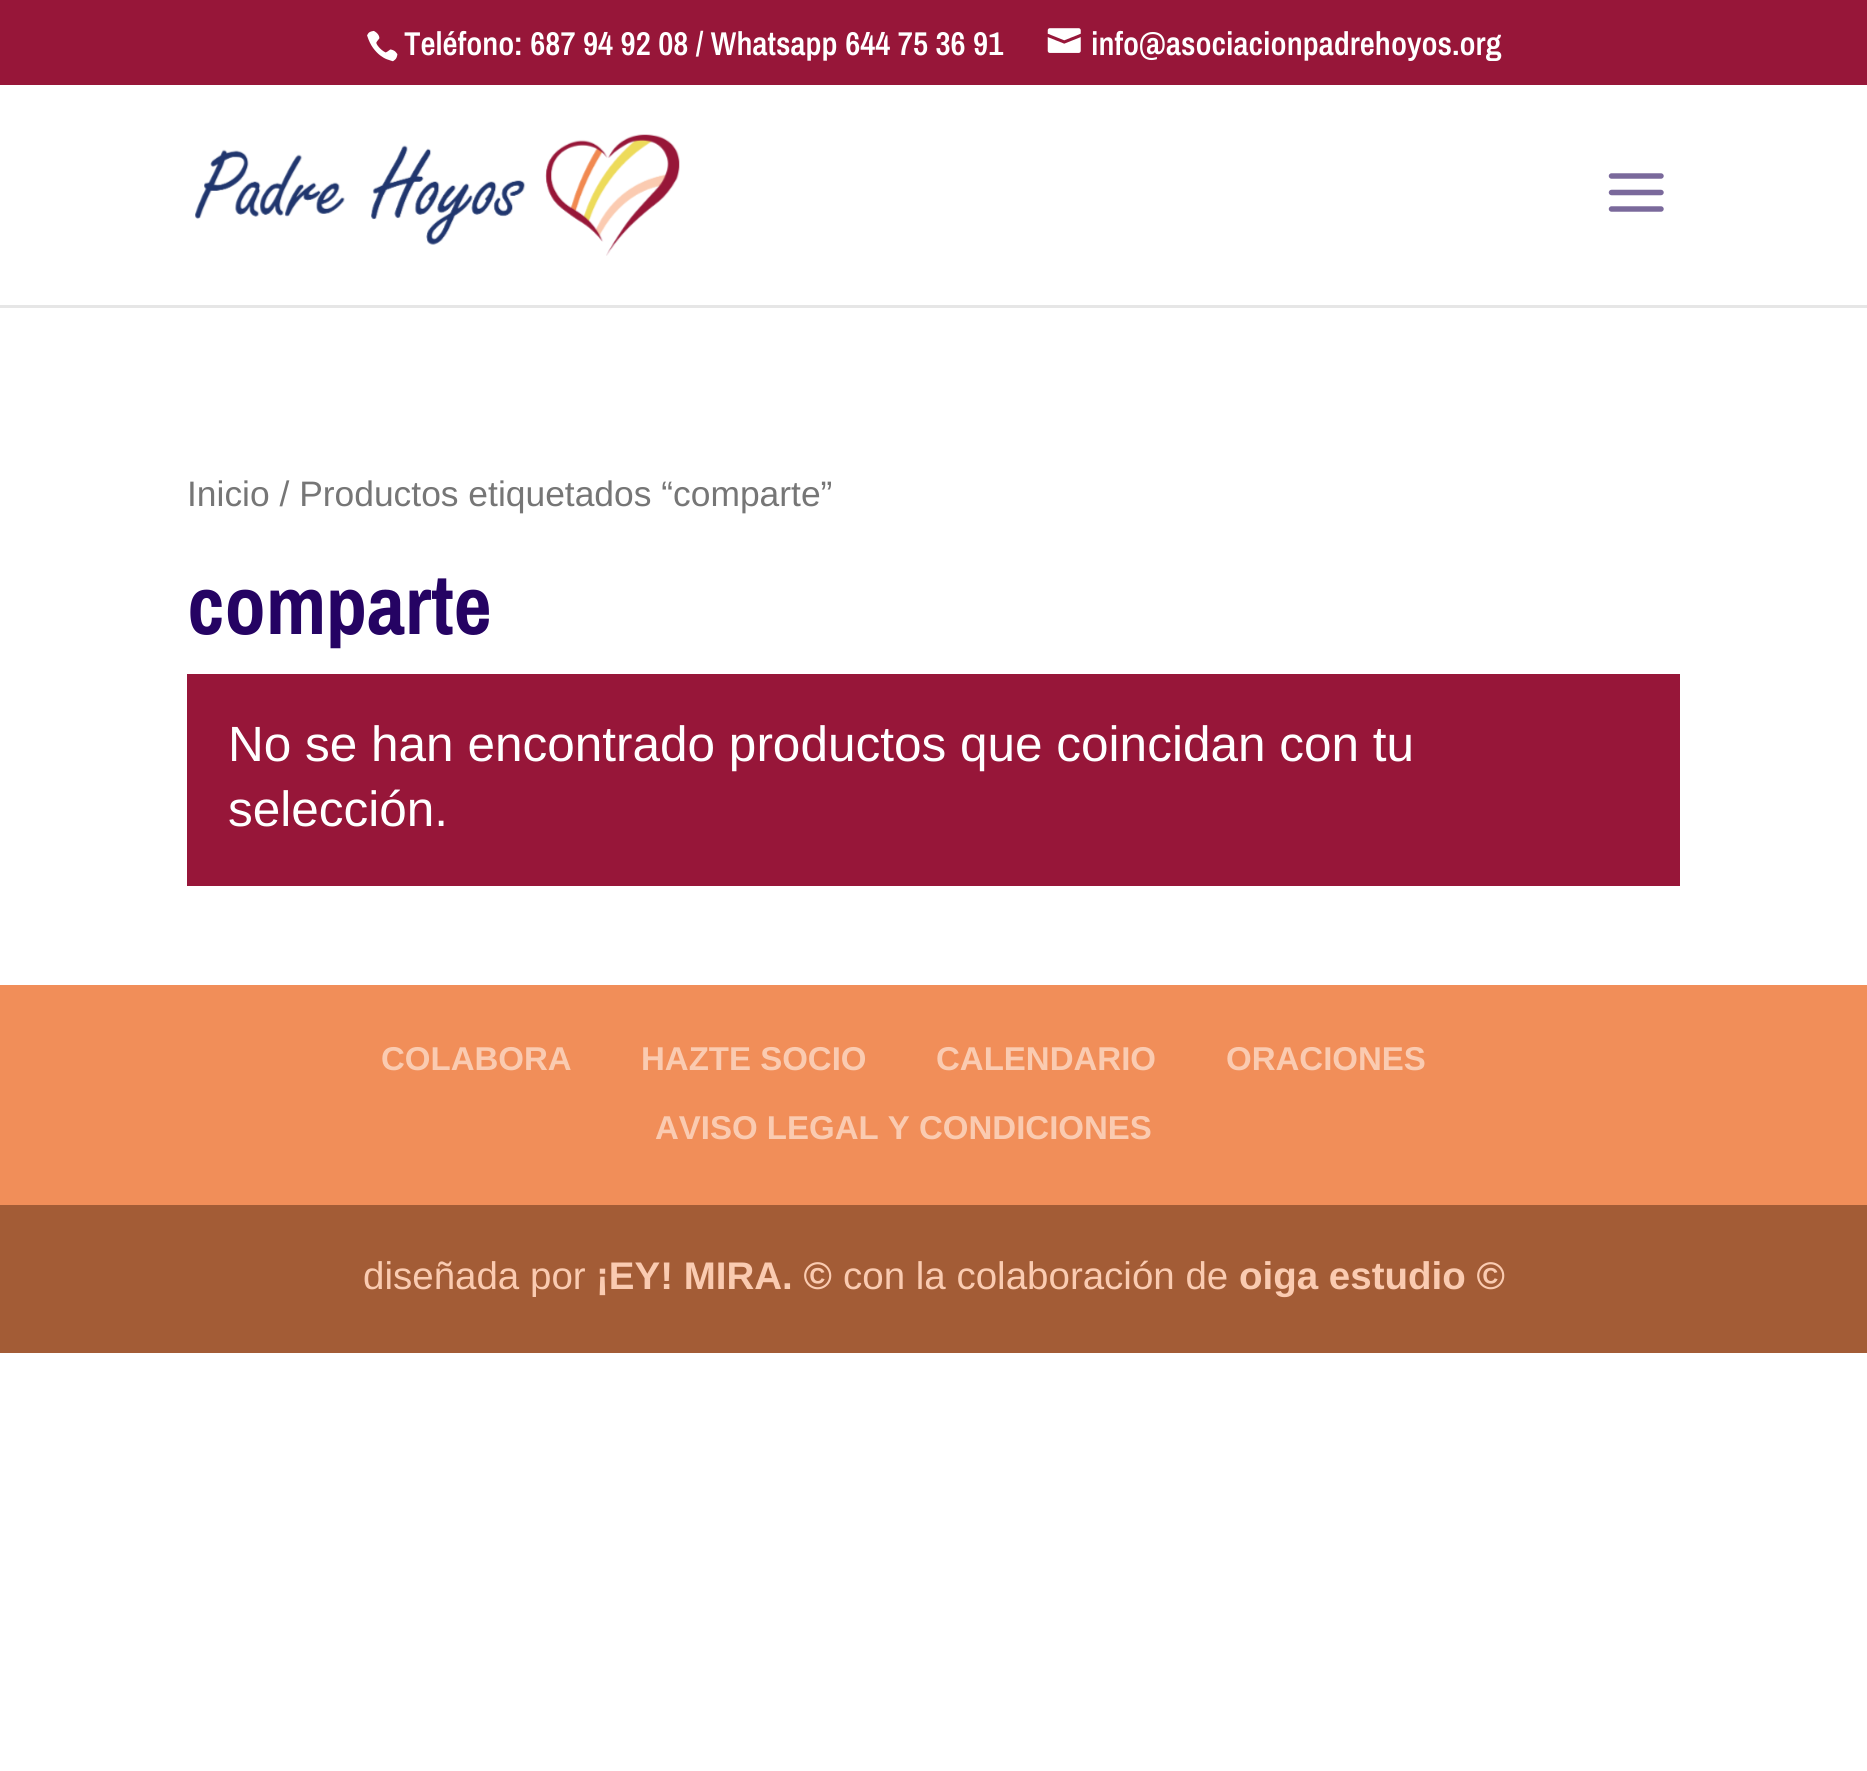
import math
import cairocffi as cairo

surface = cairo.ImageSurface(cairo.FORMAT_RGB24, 1867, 1771)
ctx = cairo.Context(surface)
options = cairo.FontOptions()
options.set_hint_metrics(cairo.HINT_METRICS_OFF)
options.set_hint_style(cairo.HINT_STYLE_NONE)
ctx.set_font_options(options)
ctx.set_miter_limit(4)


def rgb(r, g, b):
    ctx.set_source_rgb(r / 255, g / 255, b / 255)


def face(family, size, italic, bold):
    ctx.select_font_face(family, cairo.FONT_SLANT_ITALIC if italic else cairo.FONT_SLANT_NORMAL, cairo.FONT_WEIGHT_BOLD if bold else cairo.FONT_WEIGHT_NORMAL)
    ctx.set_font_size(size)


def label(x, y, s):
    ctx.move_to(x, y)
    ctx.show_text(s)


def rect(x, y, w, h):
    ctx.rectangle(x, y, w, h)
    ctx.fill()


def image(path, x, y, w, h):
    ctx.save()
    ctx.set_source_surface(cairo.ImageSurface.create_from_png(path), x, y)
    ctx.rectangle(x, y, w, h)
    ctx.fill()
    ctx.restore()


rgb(255, 255, 255)
ctx.paint()
rgb(151, 22, 57)
rect(0, 0, 1867, 85)
image('image0.png', 367, 30, 31, 32)
face('Archivo Narrow SemiBold', 33, 0, 0)
rgb(255, 255, 255)
label(404, 55, 'Teléfono: 687 94 92 08 / Whatsapp 644 75 36 91')
image('image1.png', 1047, 28, 34, 25)
label(1091, 55, 'info@asociacionpadrehoyos.org')
rgb(230, 230, 230)
rect(0, 305, 1867, 3)
image('image2.png', 195, 134, 485, 122)
image('image3.png', 1608, 173, 56, 39)
face('Liberation Sans', 35.4, 0, 0)
rgb(118, 118, 118)
label(187, 506, 'Inicio / Productos etiquetados “comparte”')
face('Archivo Narrow', 82.5, 0, 1)
rgb(37, 3, 99)
label(187, 634, 'comparte')
rgb(151, 22, 57)
rect(187, 674, 1493, 212)
face('Liberation Sans', 49.5, 0, 0)
rgb(255, 255, 255)
label(228, 761, 'No se han encontrado productos que coincidan con tu')
label(228, 826, 'selección.')
rgb(241, 142, 89)
rect(0, 985, 1867, 220)
face('Liberation Sans', 33, 0, 1)
rgb(250, 203, 177)
label(381, 1070, 'COLABORA')
label(641, 1070, 'HAZTE SOCIO')
label(936, 1070, 'CALENDARIO')
label(1226, 1070, 'ORACIONES')
label(655, 1139, 'AVISO LEGAL Y CONDICIONES')
rgb(163, 92, 54)
rect(0, 1205, 1867, 148)
face('Liberation Sans', 38.5, 0, 0)
rgb(250, 203, 177)
label(363, 1289, 'diseñada por')
face('Liberation Sans', 38.5, 0, 1)
label(596, 1289, '¡EY! MIRA. ©')
face('Liberation Sans', 38.5, 0, 0)
label(843, 1289, 'con la colaboración de')
face('Liberation Sans', 38.5, 0, 1)
label(1239, 1289, 'oiga estudio ©')
surface.write_to_png('render.png')
